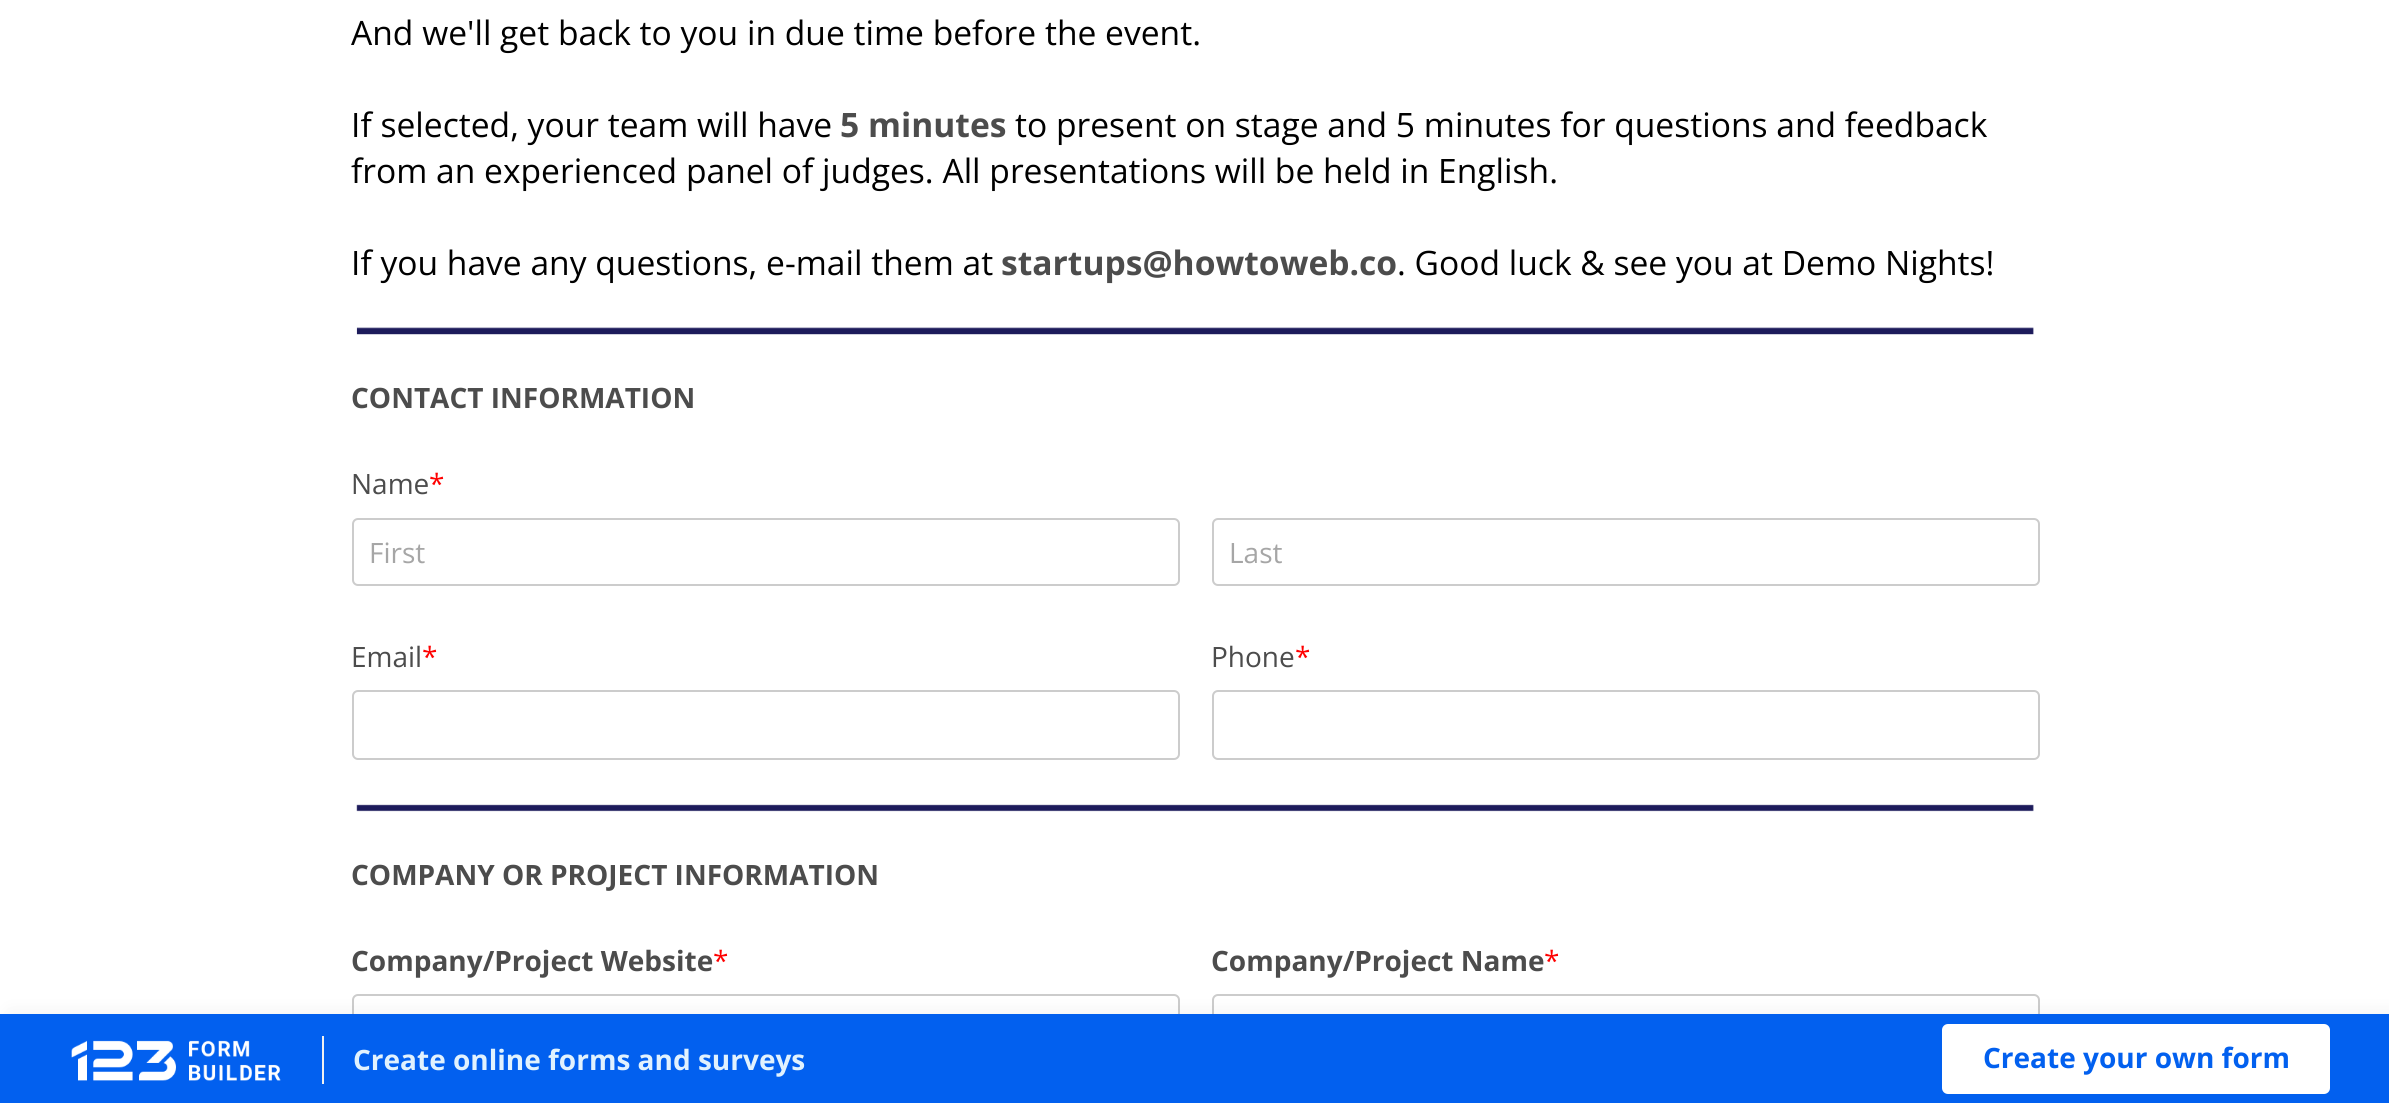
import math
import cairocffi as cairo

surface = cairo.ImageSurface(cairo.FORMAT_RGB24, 2389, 1103)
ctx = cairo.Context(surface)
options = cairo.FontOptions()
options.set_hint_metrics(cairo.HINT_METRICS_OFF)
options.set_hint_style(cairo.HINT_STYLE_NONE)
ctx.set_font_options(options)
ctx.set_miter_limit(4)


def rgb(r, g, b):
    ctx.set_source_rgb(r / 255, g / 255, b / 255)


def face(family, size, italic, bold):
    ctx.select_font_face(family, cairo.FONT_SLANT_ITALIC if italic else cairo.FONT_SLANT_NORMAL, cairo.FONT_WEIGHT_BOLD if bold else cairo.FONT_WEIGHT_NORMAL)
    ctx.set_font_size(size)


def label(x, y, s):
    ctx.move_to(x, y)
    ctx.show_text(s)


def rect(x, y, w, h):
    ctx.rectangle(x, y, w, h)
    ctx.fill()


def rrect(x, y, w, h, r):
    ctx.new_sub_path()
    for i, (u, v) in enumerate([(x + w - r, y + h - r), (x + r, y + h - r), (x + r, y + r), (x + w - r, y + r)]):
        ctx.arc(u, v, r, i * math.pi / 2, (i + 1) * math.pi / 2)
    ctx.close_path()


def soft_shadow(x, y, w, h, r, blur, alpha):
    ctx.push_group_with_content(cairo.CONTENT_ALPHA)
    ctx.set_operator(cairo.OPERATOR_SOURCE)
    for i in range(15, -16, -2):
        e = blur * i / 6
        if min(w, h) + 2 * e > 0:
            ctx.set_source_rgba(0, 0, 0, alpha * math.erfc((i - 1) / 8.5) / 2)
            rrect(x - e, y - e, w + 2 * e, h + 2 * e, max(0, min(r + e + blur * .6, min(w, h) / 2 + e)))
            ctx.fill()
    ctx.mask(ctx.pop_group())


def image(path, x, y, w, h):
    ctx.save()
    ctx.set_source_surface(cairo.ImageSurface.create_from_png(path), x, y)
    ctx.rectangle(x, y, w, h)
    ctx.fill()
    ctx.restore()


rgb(255, 255, 255)
ctx.paint()
face('Open Sans', 33.6, 0, 0)
rgb(0, 0, 0)
label(351, 45, 'And we\'ll get back to you in due time before the event.')
label(351, 137, 'If selected, your team will have')
face('Open Sans', 33.6, 0, 1)
rgb(76, 76, 76)
label(840, 137, '5 minutes')
face('Open Sans', 33.6, 0, 0)
rgb(0, 0, 0)
label(1015, 137, 'to present on stage and 5 minutes for questions and feedback')
label(351, 183, 'from an experienced panel of judges. All presentations will be held in English.')
label(351, 275, 'If you have any questions, e-mail them at')
face('Open Sans', 33.6, 0, 1)
rgb(76, 76, 76)
label(1001, 275, 'startups@howtoweb.co')
face('Open Sans', 33.6, 0, 0)
rgb(0, 0, 0)
label(1397, 275, '. Good luck & see you at Demo Nights!')
image('image0.png', 356, 327, 1678, 8)
face('Open Sans', 28, 0, 1)
rgb(76, 76, 76)
label(351, 408, 'CONTACT INFORMATION')
face('Open Sans', 28, 0, 0)
label(351, 494, 'Name')
rgb(255, 0, 0)
label(429, 494, '*')
rrect(353, 519, 826, 66, 5)
rgb(204, 204, 204)
ctx.stroke()
rgb(166, 166, 166)
label(369, 563, 'First')
rrect(1213, 519, 826, 66, 5)
rgb(204, 204, 204)
ctx.stroke()
rgb(166, 166, 166)
label(1229, 563, 'Last')
rgb(76, 76, 76)
label(351, 667, 'Email')
rgb(255, 0, 0)
label(422, 667, '*')
rrect(353, 691, 826, 68, 5)
rgb(204, 204, 204)
ctx.stroke()
rgb(76, 76, 76)
label(1211, 667, 'Phone')
rgb(255, 0, 0)
label(1295, 667, '*')
rrect(1213, 691, 826, 68, 5)
rgb(204, 204, 204)
ctx.stroke()
image('image1.png', 356, 804, 1678, 8)
face('Open Sans', 28, 0, 1)
rgb(76, 76, 76)
label(351, 885, 'COMPANY OR PROJECT INFORMATION')
label(351, 971, 'Company/Project Website')
face('Open Sans', 28, 0, 0)
rgb(255, 0, 0)
label(713, 971, '*')
rrect(353, 995, 826, 68, 5)
rgb(204, 204, 204)
ctx.stroke()
face('Open Sans', 28, 0, 1)
rgb(76, 76, 76)
label(1211, 971, 'Company/Project Name')
face('Open Sans', 28, 0, 0)
rgb(255, 0, 0)
label(1544, 971, '*')
rrect(1213, 995, 826, 68, 5)
rgb(204, 204, 204)
ctx.stroke()
rgb(76, 76, 76)
soft_shadow(10, 1014, 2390, 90, 0, 10, 0.08)
rgb(2, 96, 239)
rect(0, 1014, 2389, 89)
image('image2.png', 71, 1040, 210, 41)
rgb(240, 240, 240)
rect(322, 1036, 2, 48)
face('Open Sans', 28, 0, 1)
rgb(225, 242, 254)
label(353, 1070, 'Create online forms and surveys')
rgb(255, 255, 255)
rrect(1942, 1024, 388, 70, 6)
ctx.fill()
rgb(2, 96, 239)
label(1983, 1068, 'Create your own form')
surface.write_to_png('render.png')
